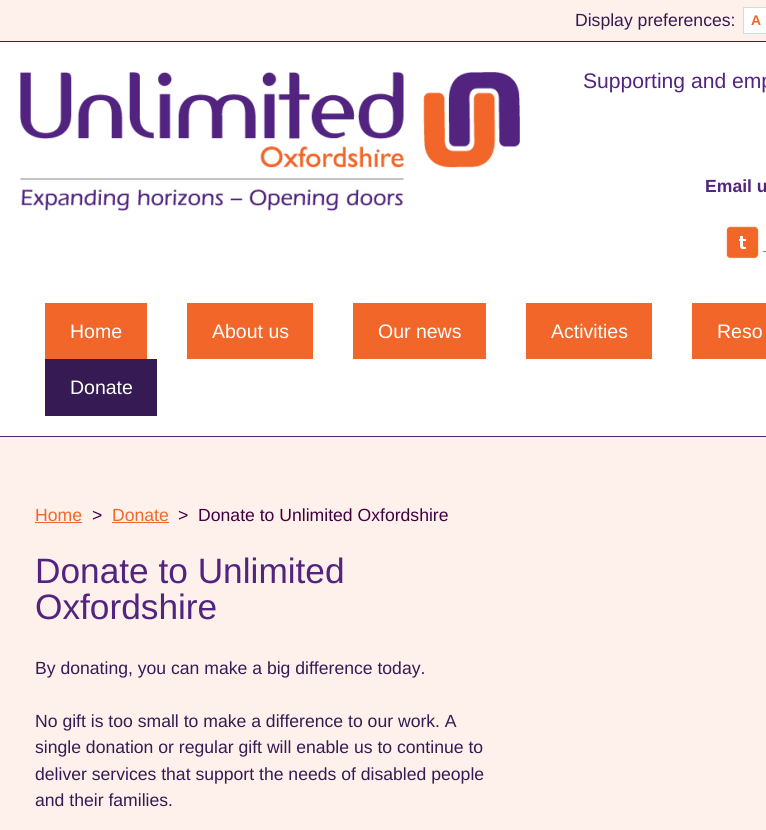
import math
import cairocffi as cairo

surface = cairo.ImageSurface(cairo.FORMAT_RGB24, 766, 830)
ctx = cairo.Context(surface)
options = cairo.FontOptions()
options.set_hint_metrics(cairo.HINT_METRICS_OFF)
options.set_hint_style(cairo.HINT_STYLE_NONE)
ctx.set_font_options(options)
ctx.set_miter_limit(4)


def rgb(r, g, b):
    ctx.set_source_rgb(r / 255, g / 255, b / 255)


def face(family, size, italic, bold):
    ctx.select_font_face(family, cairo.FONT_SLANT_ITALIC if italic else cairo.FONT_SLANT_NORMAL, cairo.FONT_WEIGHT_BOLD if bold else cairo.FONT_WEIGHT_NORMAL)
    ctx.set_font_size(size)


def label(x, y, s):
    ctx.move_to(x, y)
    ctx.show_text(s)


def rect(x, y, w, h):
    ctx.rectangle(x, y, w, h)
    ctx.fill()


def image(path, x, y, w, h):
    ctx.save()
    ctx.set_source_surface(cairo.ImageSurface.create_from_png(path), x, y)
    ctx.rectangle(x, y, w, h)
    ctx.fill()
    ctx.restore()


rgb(254, 240, 234)
ctx.paint()
rgb(53, 26, 84)
rect(0, 41, 766, 1)
face('Liberation Sans', 17.6, 0, 0)
label(575, 26, 'Display preferences:')
rgb(255, 255, 255)
ctx.rectangle(743.5, 7.5, 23, 26)
ctx.fill_preserve()
rgb(204, 223, 223)
ctx.set_line_width(1)
ctx.stroke()
face('Liberation Sans', 14, 0, 1)
rgb(242, 103, 41)
label(751, 25, 'A')
rgb(255, 255, 255)
rect(0, 42, 766, 394)
image('image0.png', 20, 72, 500, 139)
face('Liberation Sans', 21.1, 0, 0)
rgb(82, 36, 127)
label(583, 88, 'Supporting and emp')
face('Liberation Sans', 17.6, 0, 1)
label(705, 192, 'Email u')
image('image1.png', 726, 226, 33, 33)
rgb(242, 103, 41)
rect(763, 251, 3, 1)
rgb(82, 36, 127)
rect(0, 436, 766, 1)
rgb(242, 103, 41)
rect(45, 303, 102, 56)
face('Liberation Sans', 19.5, 0, 0)
rgb(255, 255, 255)
label(70, 338, 'Home')
rgb(242, 103, 41)
rect(187, 303, 126, 56)
rgb(255, 255, 255)
label(212, 338, 'About us')
rgb(242, 103, 41)
rect(353, 303, 133, 56)
rgb(255, 255, 255)
label(378, 338, 'Our news')
rgb(242, 103, 41)
rect(526, 303, 126, 56)
rgb(255, 255, 255)
label(551, 338, 'Activities')
rgb(242, 103, 41)
rect(692, 303, 74, 56)
rgb(255, 255, 255)
label(717, 338, 'Reso')
rgb(53, 26, 84)
rect(45, 359, 112, 57)
rgb(255, 255, 255)
label(70, 394, 'Donate')
face('Liberation Sans', 17.6, 0, 0)
rgb(242, 103, 41)
label(35, 521, 'Home')
rect(35, 522, 47, 1)
rgb(64, 0, 64)
label(92, 521, '>')
rgb(242, 103, 41)
label(112, 521, 'Donate')
rect(112, 522, 57, 1)
rgb(64, 0, 64)
label(178, 521, '>  Donate to Unlimited Oxfordshire')
face('Liberation Sans', 35.25, 0, 0)
rgb(82, 36, 127)
label(35, 583, 'Donate to Unlimited')
label(35, 619, 'Oxfordshire')
face('Liberation Sans', 17.6, 0, 0)
rgb(53, 26, 84)
label(35, 674, 'By donating, you can make a big difference today.')
label(35, 727, 'No gift is too small to make a difference to our work. A')
label(35, 753, 'single donation or regular gift will enable us to continue to')
label(35, 780, 'deliver services that support the needs of disabled people')
label(35, 806, 'and their families.')
surface.write_to_png('render.png')
